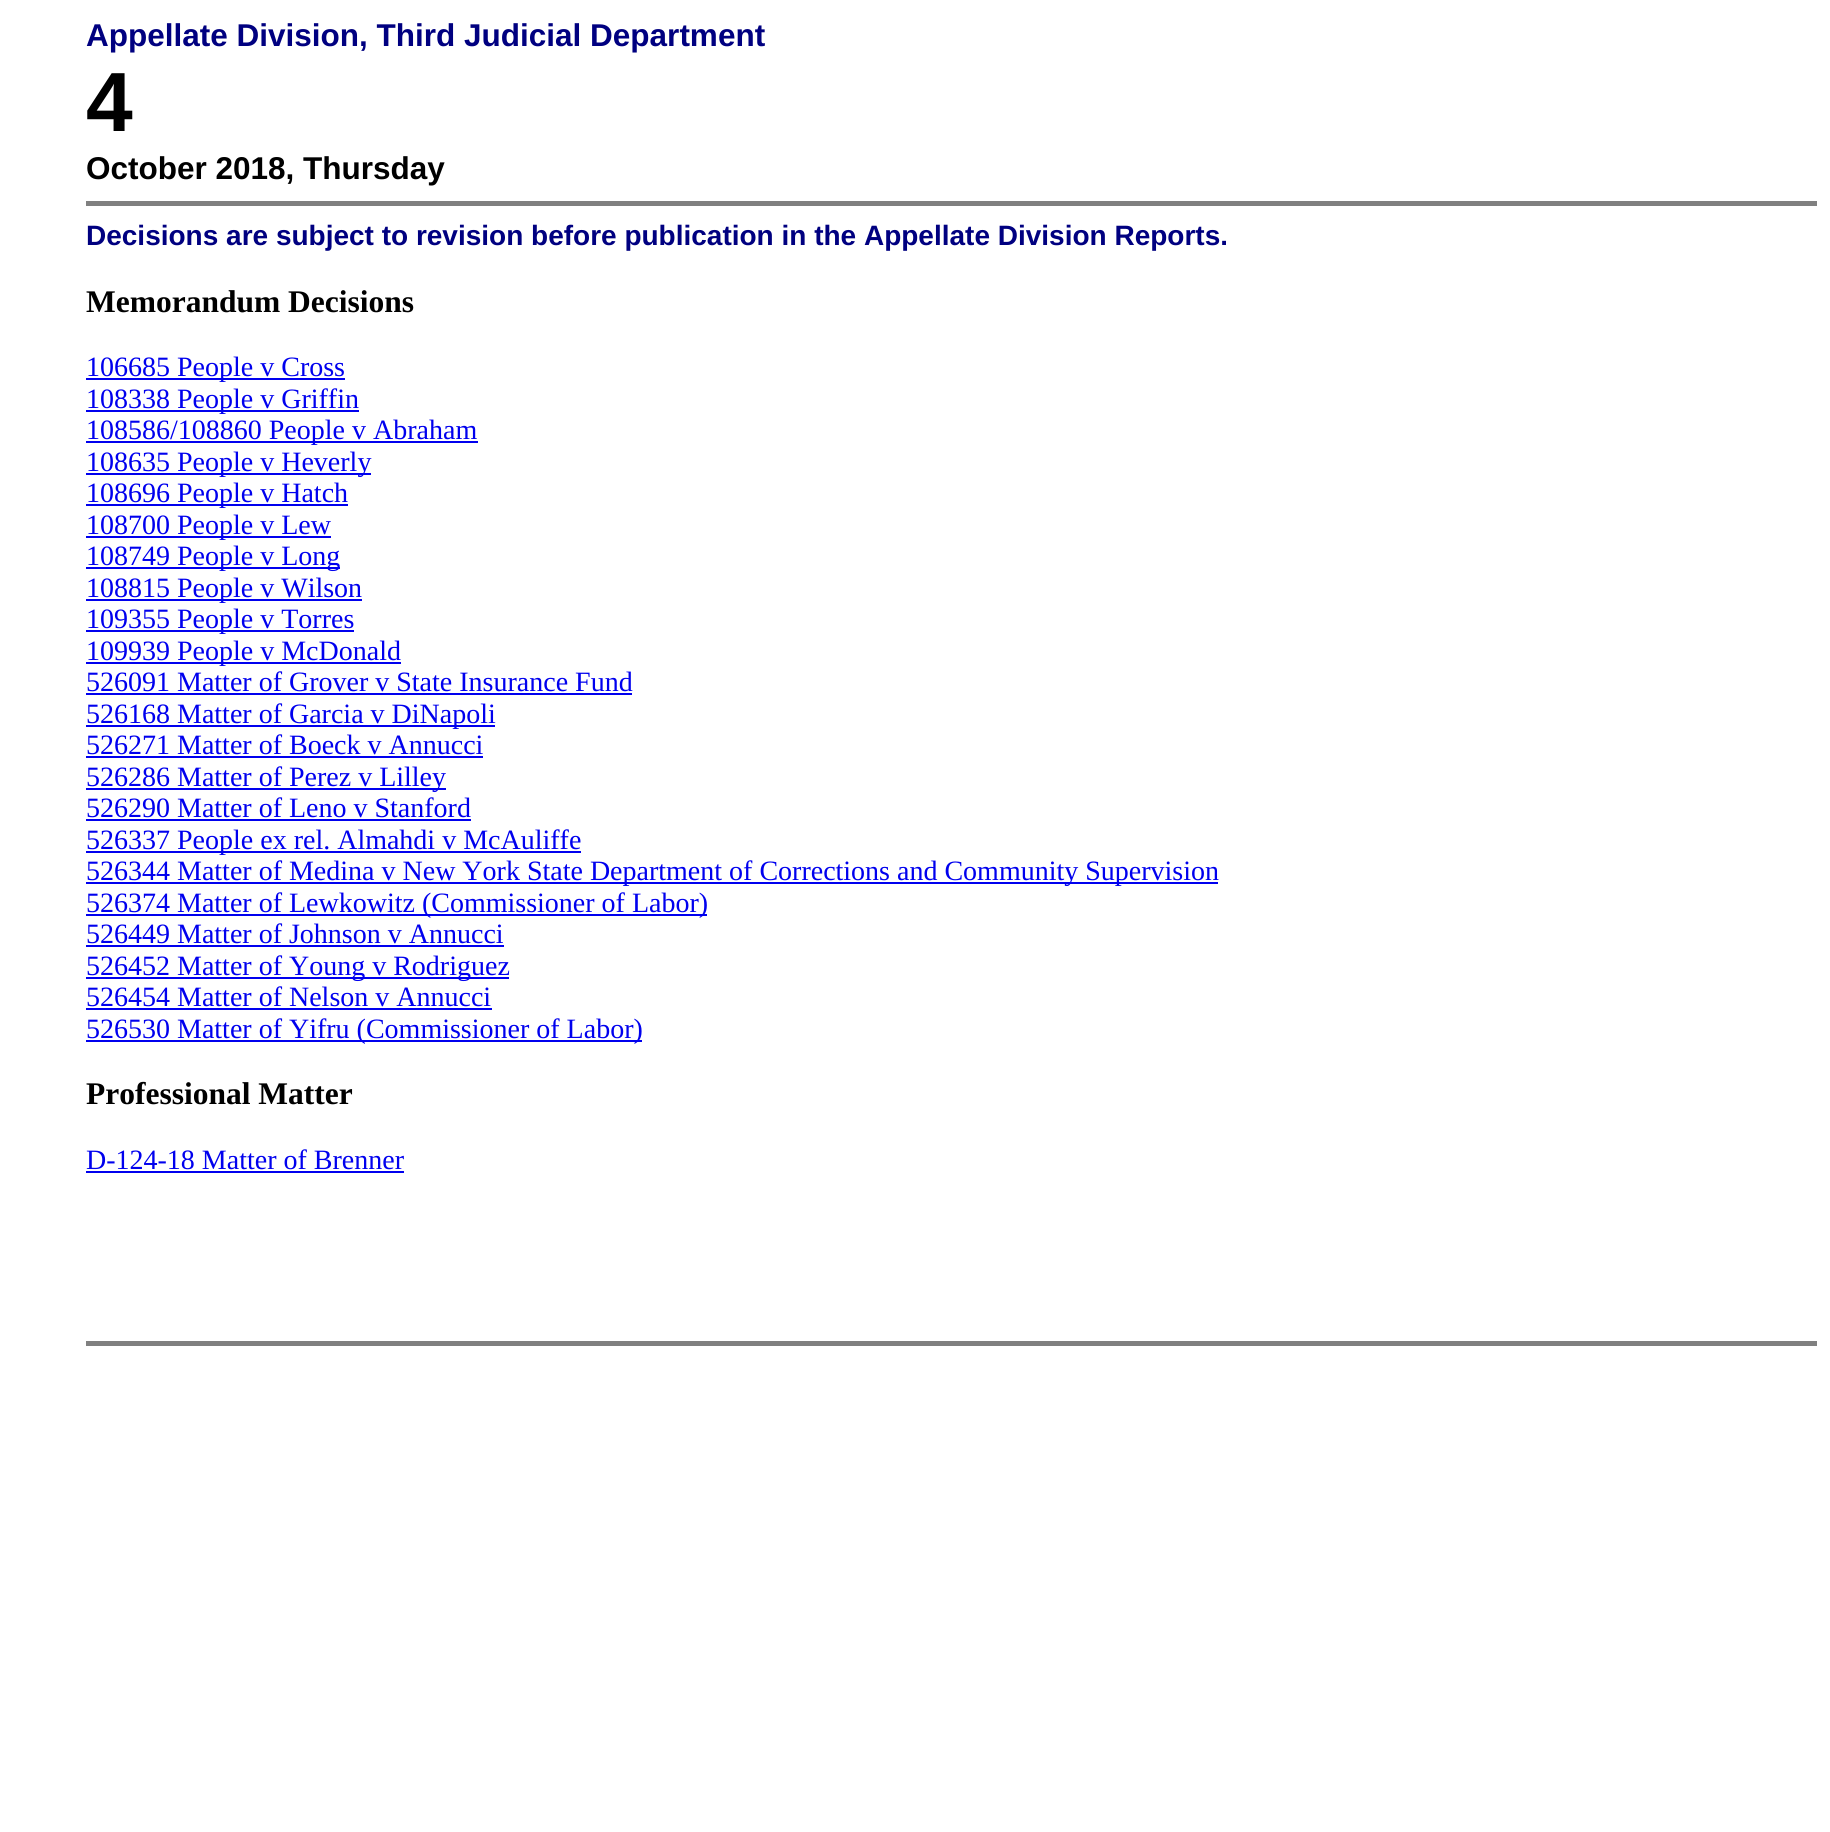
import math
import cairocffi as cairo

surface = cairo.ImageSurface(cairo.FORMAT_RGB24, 1830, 1832)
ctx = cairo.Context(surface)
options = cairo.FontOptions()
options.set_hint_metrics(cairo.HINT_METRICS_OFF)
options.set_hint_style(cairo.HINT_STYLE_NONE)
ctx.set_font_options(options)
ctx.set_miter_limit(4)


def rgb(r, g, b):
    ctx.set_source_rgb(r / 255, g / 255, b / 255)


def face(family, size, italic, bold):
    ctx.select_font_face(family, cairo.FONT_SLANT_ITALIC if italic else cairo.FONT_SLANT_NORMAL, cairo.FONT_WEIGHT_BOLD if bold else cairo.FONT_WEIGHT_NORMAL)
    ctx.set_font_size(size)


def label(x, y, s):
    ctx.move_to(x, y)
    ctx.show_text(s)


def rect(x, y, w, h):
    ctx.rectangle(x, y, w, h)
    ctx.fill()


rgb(255, 255, 255)
ctx.paint()
face('Liberation Sans', 31.5, 0, 1)
rgb(0, 0, 128)
label(86, 46, 'Appellate Division, Third Judicial Department')
face('Liberation Sans', 84, 0, 1)
rgb(0, 0, 0)
label(86, 131, '4')
face('Liberation Sans', 31.5, 0, 1)
label(86, 179, 'October 2018, Thursday')
rgb(128, 128, 128)
rect(86, 201, 1731, 5)
face('Liberation Sans', 28, 0, 1)
rgb(0, 0, 128)
label(86, 245, 'Decisions are subject to revision before publication in the Appellate Division Reports.')
face('Liberation Serif', 31.5, 0, 1)
rgb(0, 0, 0)
label(86, 312, 'Memorandum Decisions')
rgb(0, 0, 238)
rect(86, 378, 259, 2)
face('Liberation Serif', 28, 0, 0)
label(86, 376, '106685 People v Cross')
rect(86, 410, 273, 2)
label(86, 408, '108338 People v Griffin')
rect(86, 441, 392, 2)
label(86, 439, '108586/108860 People v Abraham')
rect(86, 473, 285, 2)
label(86, 471, '108635 People v Heverly')
rect(86, 504, 262, 2)
label(86, 502, '108696 People v Hatch')
rect(86, 536, 245, 2)
label(86, 534, '108700 People v Lew')
rect(86, 567, 254, 2)
label(86, 565, '108749 People v Long')
rect(86, 599, 276, 2)
label(86, 597, '108815 People v Wilson')
rect(86, 630, 268, 2)
label(86, 628, '109355 People v Torres')
rect(86, 662, 315, 2)
label(86, 660, '109939 People v McDonald')
label(86, 691, '526091 Matter of Grover v State Insurance Fund')
rect(86, 693, 546, 2)
rect(86, 725, 409, 2)
label(86, 723, '526168 Matter of Garcia v DiNapoli')
label(86, 754, '526271 Matter of Boeck v Annucci')
rect(86, 756, 397, 2)
rect(86, 788, 360, 2)
label(86, 786, '526286 Matter of Perez v Lilley')
label(86, 817, '526290 Matter of Leno v Stanford')
rect(86, 819, 385, 2)
rect(86, 851, 495, 2)
label(86, 849, '526337 People ex rel. Almahdi v McAuliffe')
rect(86, 882, 1132, 2)
label(86, 880, '526344 Matter of Medina v New York State Department of Corrections and Community Supervision')
rect(86, 914, 621, 2)
label(86, 912, '526374 Matter of Lewkowitz (Commissioner of Labor)')
label(86, 943, '526449 Matter of Johnson v Annucci')
rect(86, 945, 418, 2)
rect(86, 977, 423, 2)
label(86, 975, '526452 Matter of Young v Rodriguez')
label(86, 1006, '526454 Matter of Nelson v Annucci')
rect(86, 1008, 406, 2)
rect(86, 1040, 556, 2)
label(86, 1038, '526530 Matter of Yifru (Commissioner of Labor)')
face('Liberation Serif', 31.5, 0, 1)
rgb(0, 0, 0)
label(86, 1104, 'Professional Matter')
face('Liberation Serif', 28, 0, 0)
rgb(0, 0, 238)
label(86, 1169, 'D-124-18 Matter of Brenner')
rect(86, 1171, 318, 2)
rgb(128, 128, 128)
rect(86, 1341, 1731, 5)
surface.write_to_png('render.png')
